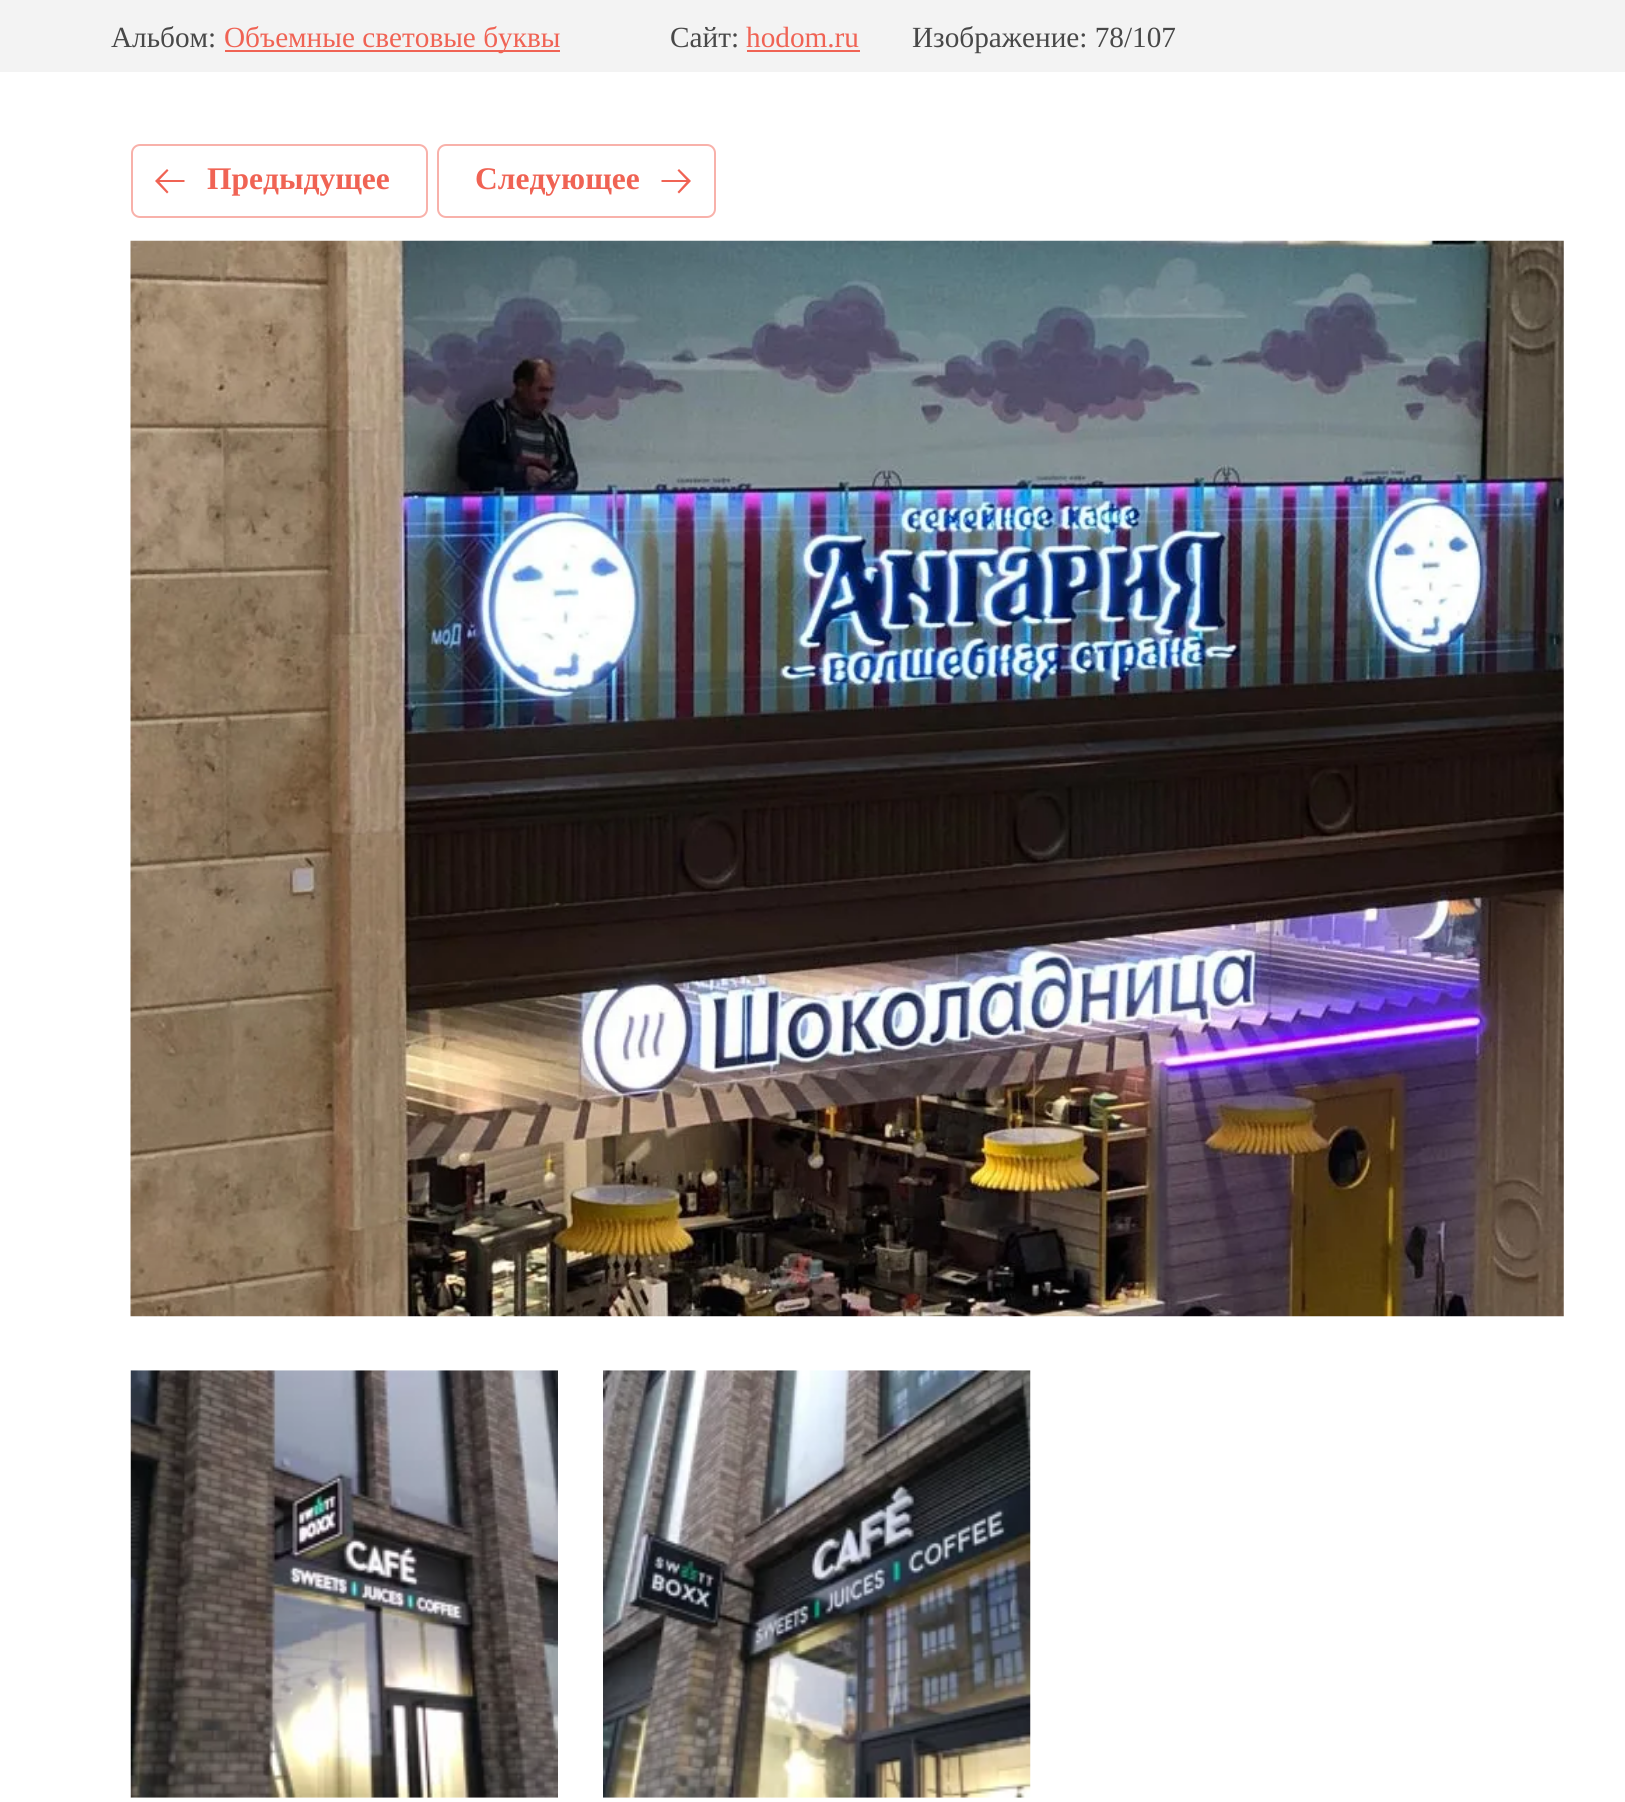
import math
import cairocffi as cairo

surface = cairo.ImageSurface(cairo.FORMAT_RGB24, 1625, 1802)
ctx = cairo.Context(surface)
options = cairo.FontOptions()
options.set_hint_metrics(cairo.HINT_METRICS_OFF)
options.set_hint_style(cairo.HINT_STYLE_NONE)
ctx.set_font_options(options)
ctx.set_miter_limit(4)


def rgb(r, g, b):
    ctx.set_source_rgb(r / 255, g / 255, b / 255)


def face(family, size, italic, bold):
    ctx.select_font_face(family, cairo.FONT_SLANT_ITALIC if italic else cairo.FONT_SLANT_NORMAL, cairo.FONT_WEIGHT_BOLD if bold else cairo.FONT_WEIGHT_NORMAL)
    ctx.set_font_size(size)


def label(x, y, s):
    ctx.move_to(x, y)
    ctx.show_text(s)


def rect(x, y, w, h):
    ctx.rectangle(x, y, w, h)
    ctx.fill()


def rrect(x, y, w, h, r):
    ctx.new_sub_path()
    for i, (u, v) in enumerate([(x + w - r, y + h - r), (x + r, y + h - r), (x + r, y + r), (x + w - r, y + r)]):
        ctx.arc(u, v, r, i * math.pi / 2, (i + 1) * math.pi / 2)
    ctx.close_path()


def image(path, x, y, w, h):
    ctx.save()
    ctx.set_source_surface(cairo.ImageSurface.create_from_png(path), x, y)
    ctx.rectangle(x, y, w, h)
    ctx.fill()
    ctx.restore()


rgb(255, 255, 255)
ctx.paint()
rgb(243, 243, 243)
rect(0, 0, 1625, 72)
face('Liberation Serif', 29.25, 0, 0)
rgb(72, 72, 72)
label(111, 47, 'Альбом:')
rgb(240, 99, 84)
rect(225, 50, 335, 2)
label(224, 47, 'Объемные световые буквы')
rgb(72, 72, 72)
label(670, 47, 'Сайт:')
rgb(240, 99, 84)
label(746, 47, 'hodom.ru')
rect(747, 50, 113, 2)
rgb(72, 72, 72)
label(912, 47, 'Изображение: 78/107')
rrect(132, 145, 295, 72, 8)
rgb(248, 177, 170)
ctx.stroke()
rgb(240, 99, 84)
ctx.new_path()
ctx.move_to(168.5, 170.5)
ctx.line_to(167, 169)
ctx.line_to(155, 181)
ctx.line_to(167, 193.5)
ctx.line_to(168.5, 192)
ctx.line_to(159.5, 182)
ctx.line_to(184.5, 182)
ctx.line_to(184.5, 180)
ctx.line_to(159.5, 180)
ctx.close_path()
ctx.fill()
face('Liberation Serif', 31.5, 0, 1)
label(207, 189, 'Предыдущее')
rrect(438, 145, 277, 72, 8)
rgb(248, 177, 170)
ctx.stroke()
rgb(240, 99, 84)
label(475, 189, 'Следующее')
ctx.new_path()
ctx.move_to(677.5, 170.5)
ctx.line_to(679, 169)
ctx.line_to(691, 181)
ctx.line_to(679, 193.5)
ctx.line_to(677.5, 192)
ctx.line_to(686.5, 182)
ctx.line_to(661.5, 182)
ctx.line_to(661.5, 180)
ctx.line_to(686.5, 180)
ctx.close_path()
ctx.fill()
image('image0.png', 130, 240, 1434, 1077)
image('image1.png', 130, 1370, 428, 428)
image('image2.png', 603, 1370, 428, 428)
surface.write_to_png('render.png')
